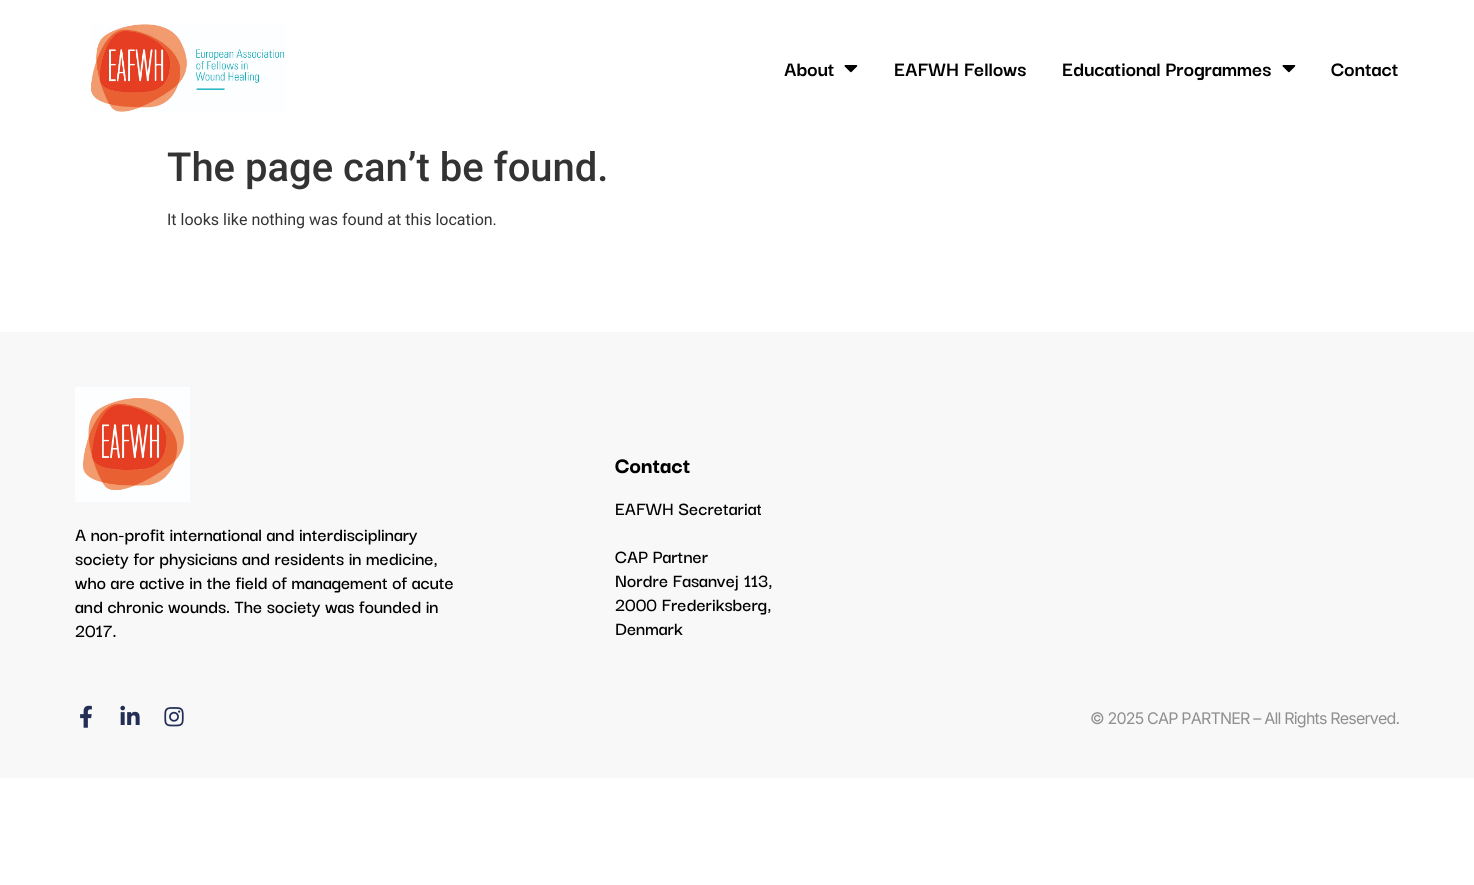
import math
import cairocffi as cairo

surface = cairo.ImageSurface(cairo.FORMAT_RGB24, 1474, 885)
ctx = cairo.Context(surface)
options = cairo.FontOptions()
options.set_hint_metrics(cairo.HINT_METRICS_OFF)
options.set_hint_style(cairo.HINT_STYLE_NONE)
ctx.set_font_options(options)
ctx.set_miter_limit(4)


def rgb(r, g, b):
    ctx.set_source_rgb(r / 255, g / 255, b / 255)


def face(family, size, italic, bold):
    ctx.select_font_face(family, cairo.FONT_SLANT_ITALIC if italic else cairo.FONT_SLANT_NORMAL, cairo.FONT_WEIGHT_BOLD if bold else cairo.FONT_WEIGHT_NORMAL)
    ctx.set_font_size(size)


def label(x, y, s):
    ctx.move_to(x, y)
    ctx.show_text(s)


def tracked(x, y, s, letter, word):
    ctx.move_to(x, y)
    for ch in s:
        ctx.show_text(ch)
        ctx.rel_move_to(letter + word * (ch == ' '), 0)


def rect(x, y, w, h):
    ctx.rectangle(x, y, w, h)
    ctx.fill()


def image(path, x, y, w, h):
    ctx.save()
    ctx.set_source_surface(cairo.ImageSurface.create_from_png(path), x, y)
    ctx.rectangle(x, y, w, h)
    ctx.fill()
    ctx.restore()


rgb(255, 255, 255)
ctx.paint()
image('image0.png', 91, 24, 194, 88)
face('Darker Grotesque', 22, 0, 1)
rgb(0, 0, 0)
label(784, 76, 'About')
image('image1.png', 844, 65, 14, 8)
label(894, 76, 'EAFWH Fellows')
label(1062, 76, 'Educational Programmes')
image('image1.png', 1282, 65, 14, 8)
label(1331, 76, 'Contact')
face('Roboto Medium', 40, 0, 0)
rgb(51, 51, 51)
label(167, 181, 'The page can’t be found.')
face('Roboto', 16, 0, 0)
label(167, 225, 'It looks like nothing was found at this location.')
rgb(248, 248, 248)
rect(0, 332, 1474, 446)
image('image2.png', 75, 387, 115, 115)
face('Darker Grotesque SemiBold', 20, 0, 0)
rgb(0, 0, 0)
label(75, 541, 'A non-profit international and interdisciplinary')
label(75, 565, 'society for physicians and residents in medicine,')
label(75, 589, 'who are active in the field of management of acute')
label(75, 613, 'and chronic wounds. The society was founded in')
label(75, 637, '2017.')
face('Darker Grotesque ExtraBold', 24, 0, 0)
label(615, 473, 'Contact')
face('Darker Grotesque SemiBold', 20, 0, 0)
label(615, 515, 'EAFWH Secretariat')
label(615, 563, 'CAP Partner')
label(615, 587, 'Nordre Fasanvej 113,')
label(615, 611, '2000 Frederiksberg,')
label(615, 635, 'Denmark')
image('image3.png', 80, 705, 12, 23)
image('image4.png', 120, 705, 20, 20)
image('image5.png', 164, 707, 20, 20)
face('Inter', 16, 0, 0)
rgb(143, 143, 143)
tracked(1090, 724, '© 2025 CAP PARTNER – All Rights Reserved.', -0.8, 0)
surface.write_to_png('render.png')
